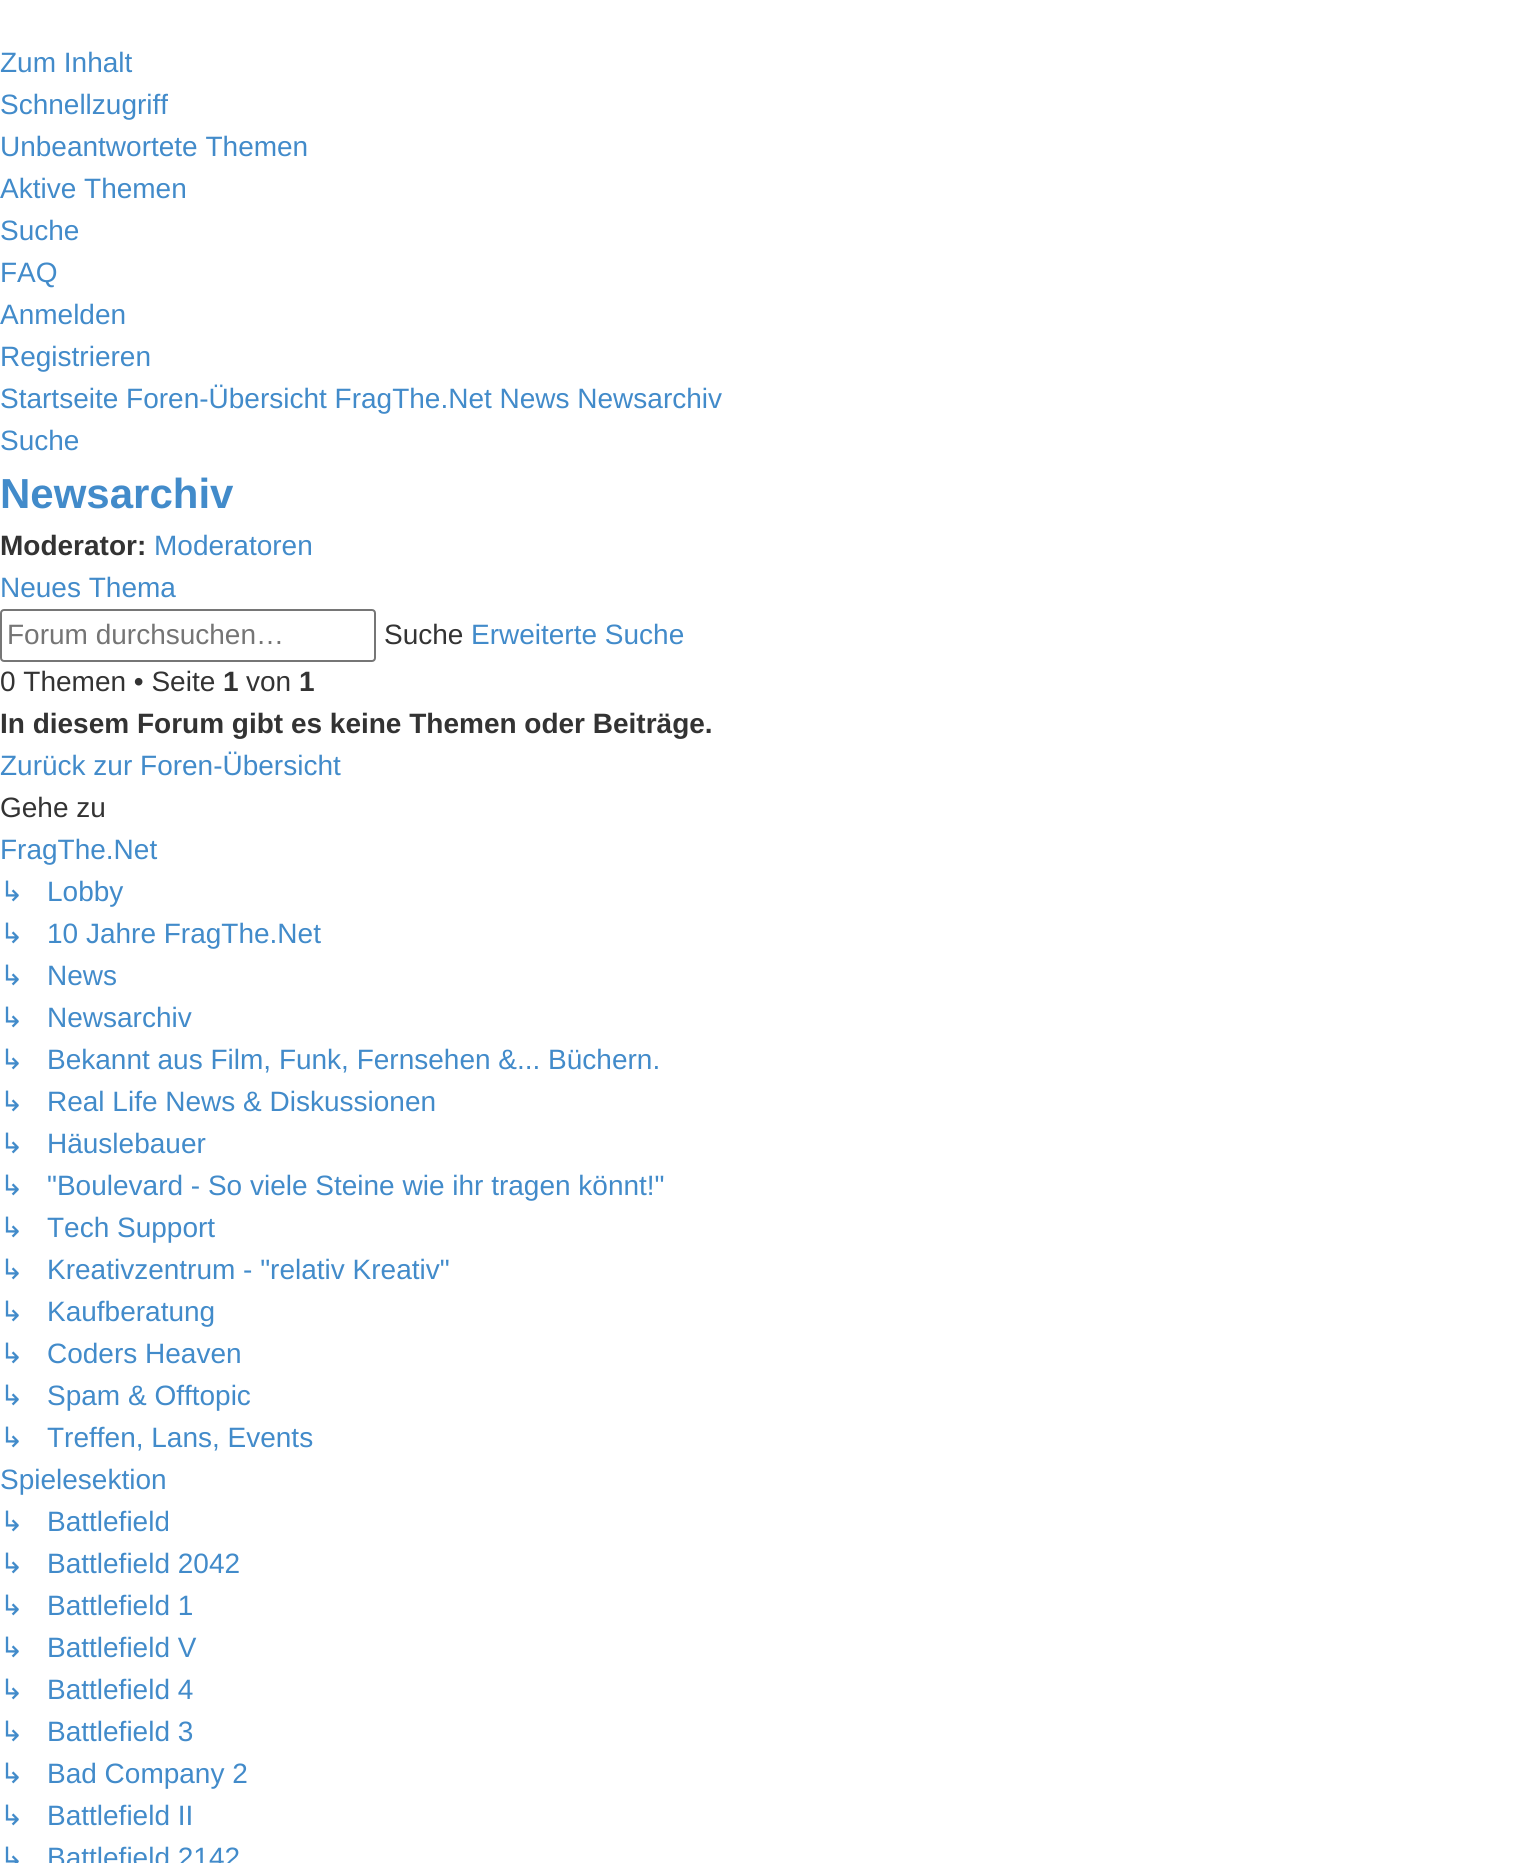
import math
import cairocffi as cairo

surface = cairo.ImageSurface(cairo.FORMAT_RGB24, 1516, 1863)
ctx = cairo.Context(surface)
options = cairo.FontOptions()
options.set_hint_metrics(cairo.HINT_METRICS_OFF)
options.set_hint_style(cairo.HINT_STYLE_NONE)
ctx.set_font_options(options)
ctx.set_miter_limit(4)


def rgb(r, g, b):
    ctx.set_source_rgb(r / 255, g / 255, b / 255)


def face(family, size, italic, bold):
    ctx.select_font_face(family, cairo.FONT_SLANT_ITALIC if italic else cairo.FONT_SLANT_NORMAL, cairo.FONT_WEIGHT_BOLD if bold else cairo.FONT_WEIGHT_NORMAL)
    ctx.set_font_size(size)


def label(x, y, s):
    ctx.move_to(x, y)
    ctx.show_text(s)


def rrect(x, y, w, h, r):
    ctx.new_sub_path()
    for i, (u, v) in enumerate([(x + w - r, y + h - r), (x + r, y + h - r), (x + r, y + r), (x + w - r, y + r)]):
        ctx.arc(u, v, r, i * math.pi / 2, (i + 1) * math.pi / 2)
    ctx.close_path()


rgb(255, 255, 255)
ctx.paint()
face('Liberation Sans', 28, 0, 0)
rgb(66, 139, 202)
label(0, 72, 'Zum Inhalt')
label(0, 114, 'Schnellzugriff')
label(0, 156, 'Unbeantwortete Themen')
label(0, 198, 'Aktive Themen')
label(0, 240, 'Suche')
label(0, 282, 'FAQ')
label(0, 324, 'Anmelden')
label(0, 366, 'Registrieren')
label(0, 408, 'Startseite Foren-Übersicht FragThe.Net News Newsarchiv')
label(0, 450, 'Suche')
face('Liberation Sans', 42, 0, 1)
label(0, 508, 'Newsarchiv')
face('Liberation Sans', 28, 0, 1)
rgb(51, 51, 51)
label(0, 555, 'Moderator:')
face('Liberation Sans', 28, 0, 0)
rgb(66, 139, 202)
label(154, 555, 'Moderatoren')
label(0, 597, 'Neues Thema')
rrect(1, 610, 374, 51, 3)
rgb(118, 118, 118)
ctx.stroke()
rgb(117, 117, 117)
label(7, 644, 'Forum durchsuchen…')
rgb(51, 51, 51)
label(384, 644, 'Suche')
rgb(66, 139, 202)
label(471, 644, 'Erweiterte Suche')
rgb(51, 51, 51)
label(0, 691, '0 Themen • Seite')
face('Liberation Sans', 28, 0, 1)
label(223, 691, '1')
face('Liberation Sans', 28, 0, 0)
label(246, 691, 'von')
face('Liberation Sans', 28, 0, 1)
label(299, 691, '1')
label(0, 733, 'In diesem Forum gibt es keine Themen oder Beiträge.')
face('Liberation Sans', 28, 0, 0)
rgb(66, 139, 202)
label(0, 775, 'Zurück zur Foren-Übersicht')
rgb(51, 51, 51)
label(0, 817, 'Gehe zu')
rgb(66, 139, 202)
label(0, 859, 'FragThe.Net')
face('DejaVu Sans', 28, 0, 0)
label(0, 901, '↳')
face('Liberation Sans', 28, 0, 0)
label(47, 901, 'Lobby')
face('DejaVu Sans', 28, 0, 0)
label(0, 943, '↳')
face('Liberation Sans', 28, 0, 0)
label(47, 943, '10 Jahre FragThe.Net')
face('DejaVu Sans', 28, 0, 0)
label(0, 985, '↳')
face('Liberation Sans', 28, 0, 0)
label(47, 985, 'News')
face('DejaVu Sans', 28, 0, 0)
label(0, 1027, '↳')
face('Liberation Sans', 28, 0, 0)
label(47, 1027, 'Newsarchiv')
face('DejaVu Sans', 28, 0, 0)
label(0, 1069, '↳')
face('Liberation Sans', 28, 0, 0)
label(47, 1069, 'Bekannt aus Film, Funk, Fernsehen &... Büchern.')
face('DejaVu Sans', 28, 0, 0)
label(0, 1111, '↳')
face('Liberation Sans', 28, 0, 0)
label(47, 1111, 'Real Life News & Diskussionen')
face('DejaVu Sans', 28, 0, 0)
label(0, 1153, '↳')
face('Liberation Sans', 28, 0, 0)
label(47, 1153, 'Häuslebauer')
face('DejaVu Sans', 28, 0, 0)
label(0, 1195, '↳')
face('Liberation Sans', 28, 0, 0)
label(47, 1195, '"Boulevard - So viele Steine wie ihr tragen könnt!"')
face('DejaVu Sans', 28, 0, 0)
label(0, 1237, '↳')
face('Liberation Sans', 28, 0, 0)
label(47, 1237, 'Tech Support')
face('DejaVu Sans', 28, 0, 0)
label(0, 1279, '↳')
face('Liberation Sans', 28, 0, 0)
label(47, 1279, 'Kreativzentrum - "relativ Kreativ"')
face('DejaVu Sans', 28, 0, 0)
label(0, 1321, '↳')
face('Liberation Sans', 28, 0, 0)
label(47, 1321, 'Kaufberatung')
face('DejaVu Sans', 28, 0, 0)
label(0, 1363, '↳')
face('Liberation Sans', 28, 0, 0)
label(47, 1363, 'Coders Heaven')
face('DejaVu Sans', 28, 0, 0)
label(0, 1405, '↳')
face('Liberation Sans', 28, 0, 0)
label(47, 1405, 'Spam & Offtopic')
face('DejaVu Sans', 28, 0, 0)
label(0, 1447, '↳')
face('Liberation Sans', 28, 0, 0)
label(47, 1447, 'Treffen, Lans, Events')
label(0, 1489, 'Spielesektion')
face('DejaVu Sans', 28, 0, 0)
label(0, 1531, '↳')
face('Liberation Sans', 28, 0, 0)
label(47, 1531, 'Battlefield')
face('DejaVu Sans', 28, 0, 0)
label(0, 1573, '↳')
face('Liberation Sans', 28, 0, 0)
label(47, 1573, 'Battlefield 2042')
face('DejaVu Sans', 28, 0, 0)
label(0, 1615, '↳')
face('Liberation Sans', 28, 0, 0)
label(47, 1615, 'Battlefield 1')
face('DejaVu Sans', 28, 0, 0)
label(0, 1657, '↳')
face('Liberation Sans', 28, 0, 0)
label(47, 1657, 'Battlefield V')
face('DejaVu Sans', 28, 0, 0)
label(0, 1699, '↳')
face('Liberation Sans', 28, 0, 0)
label(47, 1699, 'Battlefield 4')
face('DejaVu Sans', 28, 0, 0)
label(0, 1741, '↳')
face('Liberation Sans', 28, 0, 0)
label(47, 1741, 'Battlefield 3')
face('DejaVu Sans', 28, 0, 0)
label(0, 1783, '↳')
face('Liberation Sans', 28, 0, 0)
label(47, 1783, 'Bad Company 2')
face('DejaVu Sans', 28, 0, 0)
label(0, 1825, '↳')
face('Liberation Sans', 28, 0, 0)
label(47, 1825, 'Battlefield II')
face('DejaVu Sans', 28, 0, 0)
label(0, 1867, '↳')
face('Liberation Sans', 28, 0, 0)
label(47, 1867, 'Battlefield 2142')
surface.write_to_png('render.png')
